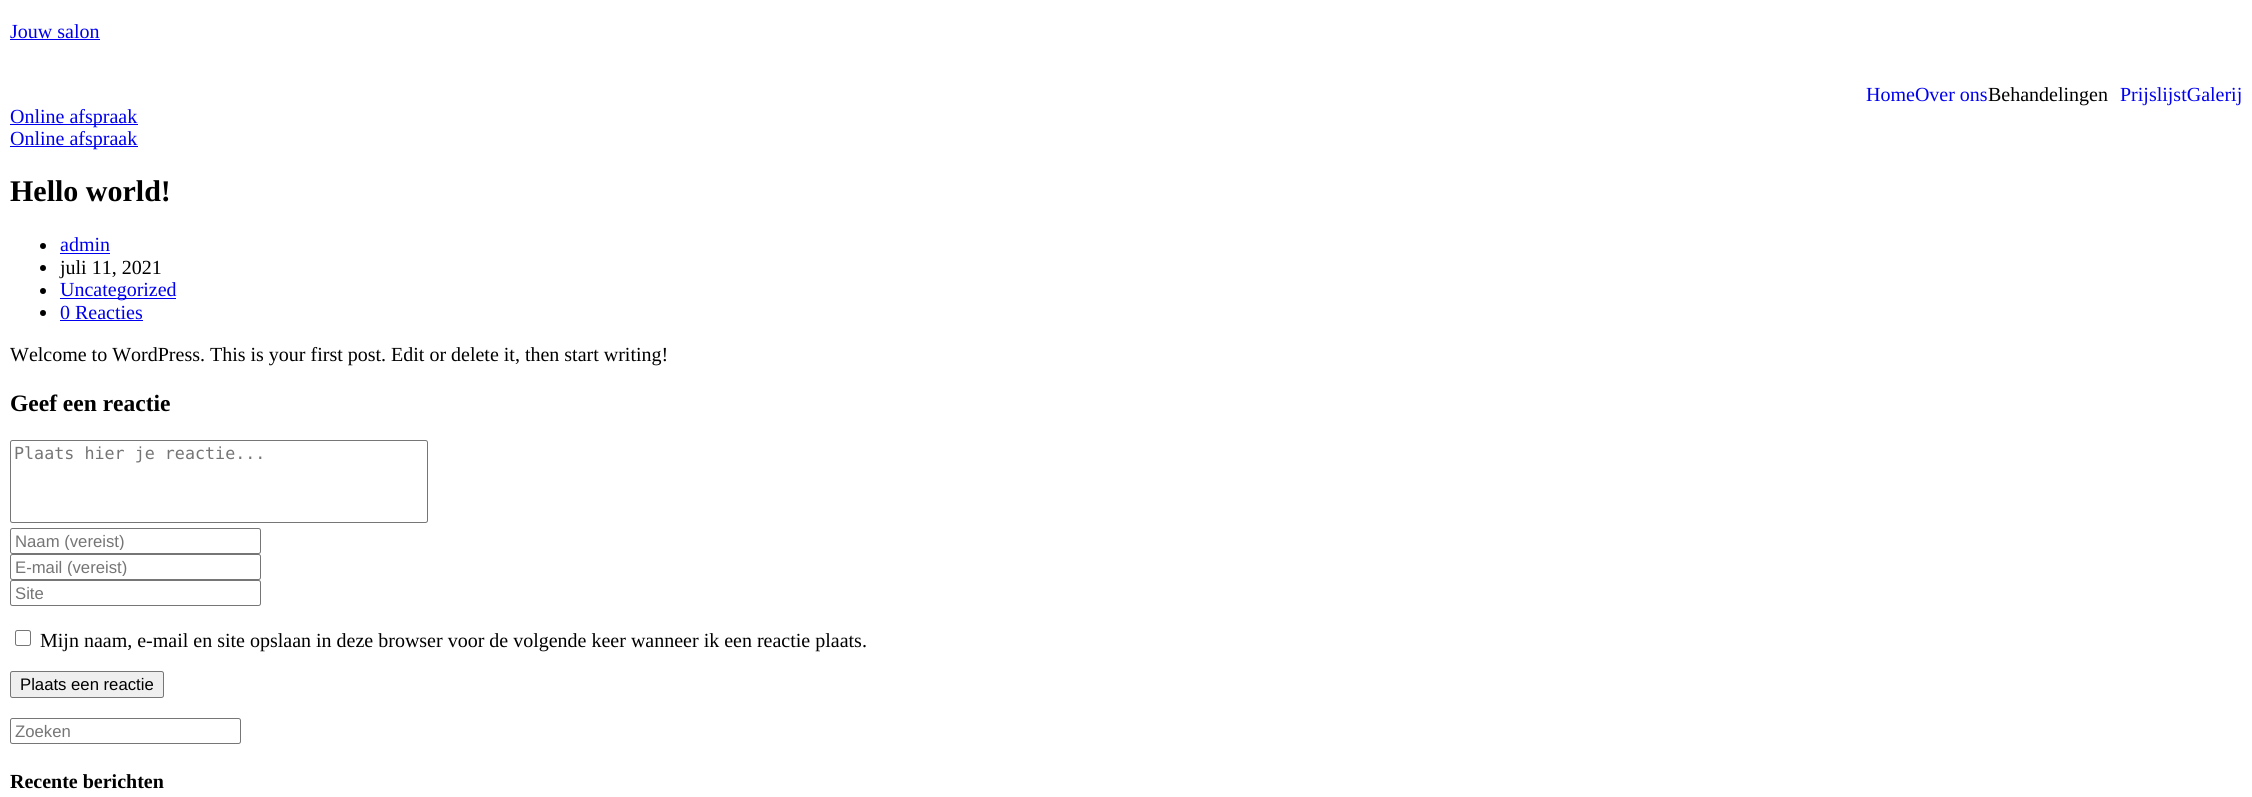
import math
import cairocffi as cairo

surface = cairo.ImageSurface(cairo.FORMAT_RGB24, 2252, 797)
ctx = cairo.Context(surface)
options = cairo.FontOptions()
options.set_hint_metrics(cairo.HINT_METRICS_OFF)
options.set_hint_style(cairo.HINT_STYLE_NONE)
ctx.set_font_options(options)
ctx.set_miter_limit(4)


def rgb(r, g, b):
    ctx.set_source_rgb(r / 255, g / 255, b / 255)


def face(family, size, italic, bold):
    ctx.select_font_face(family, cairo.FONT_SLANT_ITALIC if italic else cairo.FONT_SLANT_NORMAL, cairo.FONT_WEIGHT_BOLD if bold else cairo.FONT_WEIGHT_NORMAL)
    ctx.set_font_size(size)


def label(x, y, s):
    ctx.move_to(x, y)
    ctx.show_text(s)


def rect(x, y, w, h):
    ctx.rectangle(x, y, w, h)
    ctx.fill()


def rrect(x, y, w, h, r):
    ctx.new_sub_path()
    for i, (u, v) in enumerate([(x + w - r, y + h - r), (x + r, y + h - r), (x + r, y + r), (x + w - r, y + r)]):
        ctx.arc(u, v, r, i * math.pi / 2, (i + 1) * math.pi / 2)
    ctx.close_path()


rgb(255, 255, 255)
ctx.paint()
face('Liberation Serif', 20, 0, 0)
rgb(0, 0, 238)
label(10, 38, 'Jouw salon')
rect(10, 39, 90, 1)
label(1866, 101, 'HomeOver ons')
rgb(0, 0, 0)
label(1988, 101, 'Behandelingen')
rgb(0, 0, 238)
label(2120, 101, 'PrijslijstGalerij')
rect(10, 124, 128, 1)
label(10, 123, 'Online afspraak')
rect(10, 146, 128, 1)
label(10, 145, 'Online afspraak')
face('Liberation Serif', 30, 0, 1)
rgb(0, 0, 0)
label(10, 201, 'Hello world!')
ctx.new_path()
ctx.arc(43, 246, 3, 0, 2 * math.pi)
ctx.fill()
face('Liberation Serif', 20, 0, 0)
rgb(0, 0, 238)
label(60, 251, 'admin')
rect(60, 253, 50, 1)
rgb(0, 0, 0)
ctx.new_path()
ctx.arc(43, 268, 3, 0, 2 * math.pi)
ctx.fill()
label(60, 274, 'juli 11, 2021')
ctx.new_path()
ctx.arc(43, 291, 3, 0, 2 * math.pi)
ctx.fill()
rgb(0, 0, 238)
rect(60, 298, 116, 1)
label(60, 296, 'Uncategorized')
rgb(0, 0, 0)
ctx.new_path()
ctx.arc(43, 313, 3, 0, 2 * math.pi)
ctx.fill()
rgb(0, 0, 238)
label(60, 319, '0 Reacties')
rect(60, 320, 83, 1)
rgb(0, 0, 0)
label(10, 361, 'Welcome to WordPress. This is your first post. Edit or delete it, then start writing!')
face('Liberation Serif', 23.5, 0, 1)
label(10, 411, 'Geef een reactie')
rrect(10.5, 440.5, 417, 82, 2)
rgb(118, 118, 118)
ctx.set_line_width(1)
ctx.stroke()
face('DejaVu Sans Mono', 16.7, 0, 0)
rgb(117, 117, 117)
label(14, 459, 'Plaats hier je reactie...')
rrect(10.5, 528.5, 250, 25, 2)
rgb(118, 118, 118)
ctx.stroke()
ctx.save()
ctx.rectangle(15, 531, 241, 19)
ctx.clip()
face('Liberation Sans', 16.7, 0, 0)
rgb(117, 117, 117)
label(15, 547, 'Naam (vereist)')
ctx.restore()
rrect(10.5, 554.5, 250, 25, 2)
ctx.stroke()
ctx.save()
ctx.rectangle(15, 558, 241, 18)
ctx.clip()
face('Liberation Sans', 16.7, 0, 0)
rgb(117, 117, 117)
label(15, 573, 'E-mail (vereist)')
ctx.restore()
rrect(10.5, 580.5, 250, 25, 2)
ctx.stroke()
face('Liberation Sans', 16.7, 0, 0)
rgb(117, 117, 117)
label(15, 599, 'Site')
rrect(15.5, 630.5, 15, 15, 2)
rgb(118, 118, 118)
ctx.stroke()
face('Liberation Serif', 20, 0, 0)
rgb(0, 0, 0)
label(40, 647, 'Mijn naam, e-mail en site opslaan in deze browser voor de volgende keer wanneer ik een reactie plaats.')
rgb(239, 239, 239)
rrect(10.5, 671.5, 153, 26, 2)
ctx.fill_preserve()
rgb(118, 118, 118)
ctx.stroke()
face('Liberation Sans', 16.7, 0, 0)
rgb(0, 0, 0)
label(20, 690, 'Plaats een reactie')
rrect(10.5, 718.5, 230, 25, 2)
rgb(118, 118, 118)
ctx.stroke()
rgb(117, 117, 117)
label(15, 737, 'Zoeken')
face('Liberation Serif', 20, 0, 1)
rgb(0, 0, 0)
label(10, 788, 'Recente berichten')
surface.write_to_png('render.png')
